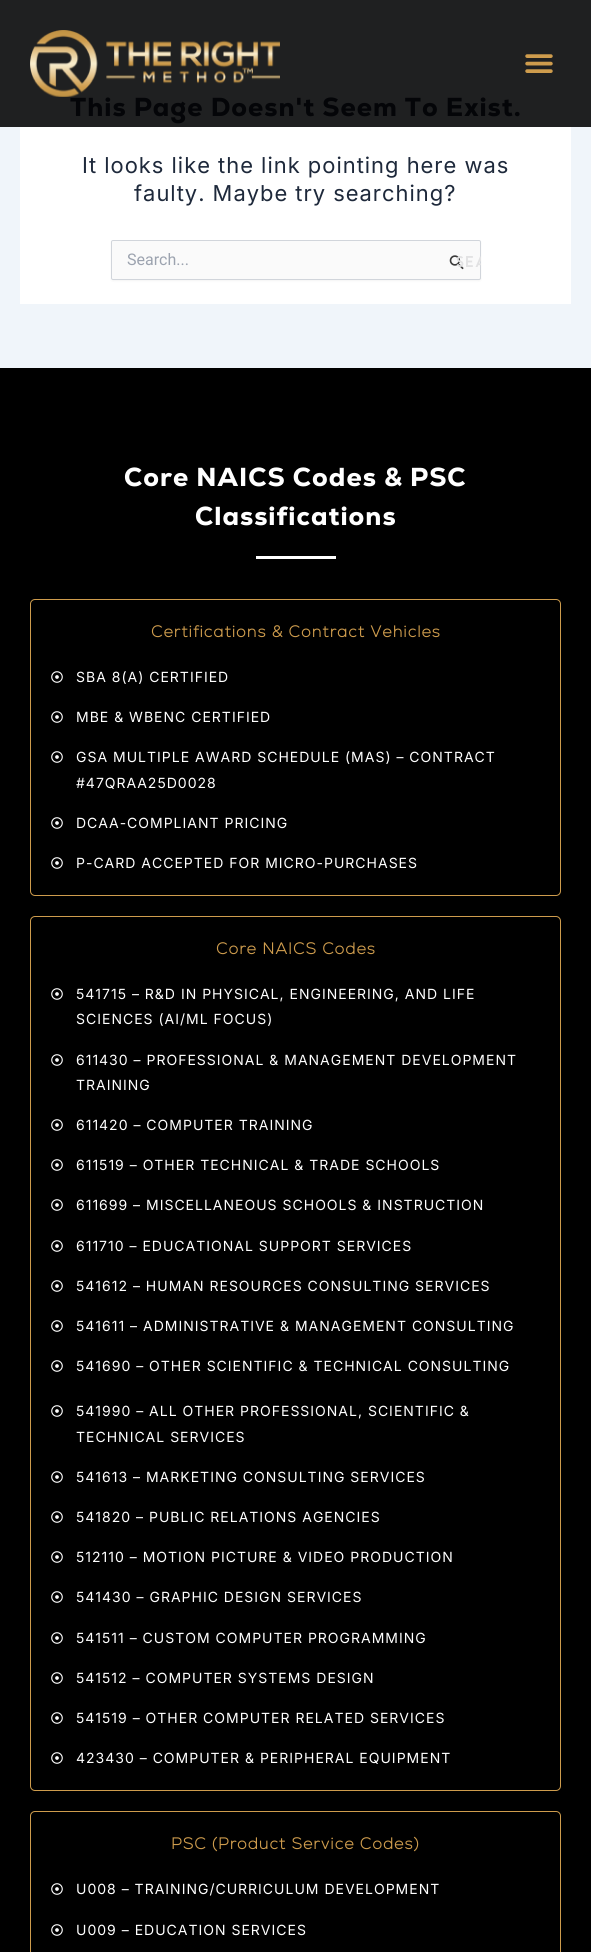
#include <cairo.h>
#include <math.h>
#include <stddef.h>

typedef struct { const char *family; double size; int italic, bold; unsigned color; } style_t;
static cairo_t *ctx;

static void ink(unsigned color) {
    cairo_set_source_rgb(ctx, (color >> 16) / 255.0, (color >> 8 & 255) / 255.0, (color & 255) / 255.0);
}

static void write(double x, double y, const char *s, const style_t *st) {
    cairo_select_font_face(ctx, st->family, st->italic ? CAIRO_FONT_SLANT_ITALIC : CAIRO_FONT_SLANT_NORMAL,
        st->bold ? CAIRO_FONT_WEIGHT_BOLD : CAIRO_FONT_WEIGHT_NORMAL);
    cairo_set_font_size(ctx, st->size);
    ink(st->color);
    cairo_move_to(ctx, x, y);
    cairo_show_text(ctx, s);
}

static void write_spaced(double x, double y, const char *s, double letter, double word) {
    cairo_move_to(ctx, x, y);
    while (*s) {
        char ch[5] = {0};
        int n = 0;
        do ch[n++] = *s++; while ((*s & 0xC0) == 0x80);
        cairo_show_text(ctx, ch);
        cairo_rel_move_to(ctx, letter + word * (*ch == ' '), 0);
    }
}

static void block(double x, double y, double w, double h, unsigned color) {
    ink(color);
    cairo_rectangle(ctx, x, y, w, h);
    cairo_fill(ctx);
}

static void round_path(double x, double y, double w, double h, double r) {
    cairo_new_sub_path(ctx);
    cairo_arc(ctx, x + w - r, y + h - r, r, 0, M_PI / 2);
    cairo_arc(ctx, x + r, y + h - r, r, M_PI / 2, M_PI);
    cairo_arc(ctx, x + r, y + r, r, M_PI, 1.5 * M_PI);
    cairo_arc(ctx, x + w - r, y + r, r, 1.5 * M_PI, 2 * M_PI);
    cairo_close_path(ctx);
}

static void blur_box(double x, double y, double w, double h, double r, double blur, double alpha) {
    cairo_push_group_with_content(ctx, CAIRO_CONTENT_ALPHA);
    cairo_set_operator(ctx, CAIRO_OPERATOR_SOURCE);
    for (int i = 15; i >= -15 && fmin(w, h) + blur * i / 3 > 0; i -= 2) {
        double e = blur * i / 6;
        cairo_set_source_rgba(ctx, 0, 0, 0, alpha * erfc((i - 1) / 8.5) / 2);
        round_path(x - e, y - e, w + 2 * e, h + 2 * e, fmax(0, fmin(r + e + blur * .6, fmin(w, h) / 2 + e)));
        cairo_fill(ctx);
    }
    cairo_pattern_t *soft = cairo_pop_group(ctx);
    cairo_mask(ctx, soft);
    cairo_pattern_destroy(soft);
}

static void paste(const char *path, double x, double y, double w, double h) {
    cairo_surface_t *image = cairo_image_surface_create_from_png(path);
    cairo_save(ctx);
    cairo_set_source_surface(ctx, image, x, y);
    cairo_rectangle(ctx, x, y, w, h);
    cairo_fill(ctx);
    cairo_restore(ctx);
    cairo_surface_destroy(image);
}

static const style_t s1 = {"Roboto", 16, 0, 0, 0x9ca3af};

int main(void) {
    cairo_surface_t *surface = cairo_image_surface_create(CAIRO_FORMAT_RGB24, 591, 1952);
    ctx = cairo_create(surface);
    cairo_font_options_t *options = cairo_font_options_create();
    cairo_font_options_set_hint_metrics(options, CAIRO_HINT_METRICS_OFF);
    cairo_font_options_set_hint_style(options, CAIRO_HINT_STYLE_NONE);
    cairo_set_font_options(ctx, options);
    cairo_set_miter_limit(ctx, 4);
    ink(0xf0f5fa);
    cairo_paint(ctx);
    block(0, 0, 591, 127, 0x1f2021);
    paste("pic1.png", 30, 30, 250, 67);
    paste("pic2.png", 525, 54, 28, 19);
    block(20, 127, 551, 177, 0xffffff);
    cairo_select_font_face(ctx, "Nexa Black", CAIRO_FONT_SLANT_NORMAL, CAIRO_FONT_WEIGHT_NORMAL);
    cairo_set_font_size(ctx, 26);
    ink(0x040508);
    write_spaced(70, 116, "This Page Doesn't Seem To Exist.", 1, 0);
    cairo_select_font_face(ctx, "Inter", CAIRO_FONT_SLANT_NORMAL, CAIRO_FONT_WEIGHT_NORMAL);
    cairo_set_font_size(ctx, 21.9);
    ink(0x1e293b);
    write_spaced(82, 173, "It looks like the link pointing here was", 1, 0);
    write_spaced(134, 201, "faulty. Maybe try searching?", 1, 0);
    ink(0x000000);
    blur_box(111, 241, 370, 40, 2, 1, 0.05);
    ink(0xfafafa);
    round_path(111.5, 240.5, 369, 39, 1.5);
    cairo_fill_preserve(ctx);
    ink(0xd1d5db);
    cairo_set_line_width(ctx, 1);
    cairo_stroke(ctx);
    write(127, 265, "Search...", &s1);
    paste("pic3.png", 449, 255, 15, 15);
    cairo_save(ctx);
    round_path(436, 240, 45, 42, 2);
    cairo_clip(ctx);
    cairo_select_font_face(ctx, "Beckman", CAIRO_FONT_SLANT_NORMAL, CAIRO_FONT_WEIGHT_NORMAL);
    ink(0xe2e2e3);
    write_spaced(456, 267, "Sea", 1, 0);
    cairo_restore(ctx);
    block(0, 368, 591, 1584, 0x000000);
    cairo_select_font_face(ctx, "Nexa Black", CAIRO_FONT_SLANT_NORMAL, CAIRO_FONT_WEIGHT_NORMAL);
    cairo_set_font_size(ctx, 26);
    ink(0xffffff);
    write_spaced(124, 486, "Core NAICS Codes & PSC", 1, 0);
    write_spaced(195, 525, "Classifications", 1, 0);
    block(256, 556, 80, 3, 0xffffff);
    round_path(30.5, 599.5, 530, 296, 4.5);
    ink(0xce9c4d);
    cairo_stroke(ctx);
    cairo_select_font_face(ctx, "Nexa", CAIRO_FONT_SLANT_NORMAL, CAIRO_FONT_WEIGHT_BOLD);
    cairo_set_font_size(ctx, 16);
    write_spaced(151, 637, "Certifications & Contract Vehicles", 1, 0);
    paste("pic4.png", 51, 671, 12, 12);
    cairo_select_font_face(ctx, "Inter", CAIRO_FONT_SLANT_NORMAL, CAIRO_FONT_WEIGHT_NORMAL);
    cairo_set_font_size(ctx, 14);
    ink(0xffffff);
    write_spaced(76, 682, "SBA 8(A) CERTIFIED", 1, 0);
    paste("pic4.png", 51, 711, 12, 12);
    write_spaced(76, 722, "MBE & WBENC CERTIFIED", 1, 0);
    paste("pic4.png", 51, 751, 12, 12);
    write_spaced(76, 762, "GSA MULTIPLE AWARD SCHEDULE (MAS) – CONTRACT", 1, 0);
    write_spaced(76, 788, "#47QRAA25D0028", 1, 0);
    paste("pic4.png", 51, 817, 12, 12);
    write_spaced(76, 828, "DCAA-COMPLIANT PRICING", 1, 0);
    paste("pic4.png", 51, 857, 12, 12);
    write_spaced(76, 868, "P-CARD ACCEPTED FOR MICRO-PURCHASES", 1, 0);
    round_path(30.5, 916.5, 530, 874, 4.5);
    ink(0xce9c4d);
    cairo_stroke(ctx);
    cairo_select_font_face(ctx, "Nexa", CAIRO_FONT_SLANT_NORMAL, CAIRO_FONT_WEIGHT_BOLD);
    cairo_set_font_size(ctx, 16);
    write_spaced(216, 954, "Core NAICS Codes", 1, 0);
    paste("pic4.png", 51, 988, 12, 12);
    cairo_select_font_face(ctx, "Inter", CAIRO_FONT_SLANT_NORMAL, CAIRO_FONT_WEIGHT_NORMAL);
    cairo_set_font_size(ctx, 14);
    ink(0xffffff);
    write_spaced(76, 999, "541715 – R&D IN PHYSICAL, ENGINEERING, AND LIFE", 1, 0);
    write_spaced(76, 1024, "SCIENCES (AI/ML FOCUS)", 1, 0);
    paste("pic4.png", 51, 1054, 12, 12);
    write_spaced(76, 1065, "611430 – PROFESSIONAL & MANAGEMENT DEVELOPMENT", 1, 0);
    write_spaced(76, 1090, "TRAINING", 1, 0);
    paste("pic4.png", 51, 1119, 12, 12);
    write_spaced(76, 1130, "611420 – COMPUTER TRAINING", 1, 0);
    paste("pic4.png", 51, 1159, 12, 12);
    write_spaced(76, 1170, "611519 – OTHER TECHNICAL & TRADE SCHOOLS", 1, 0);
    paste("pic4.png", 51, 1199, 12, 12);
    write_spaced(76, 1210, "611699 – MISCELLANEOUS SCHOOLS & INSTRUCTION", 1, 0);
    paste("pic4.png", 51, 1240, 12, 12);
    write_spaced(76, 1251, "611710 – EDUCATIONAL SUPPORT SERVICES", 1, 0);
    paste("pic4.png", 51, 1280, 12, 12);
    write_spaced(76, 1291, "541612 – HUMAN RESOURCES CONSULTING SERVICES", 1, 0);
    paste("pic4.png", 51, 1320, 12, 12);
    write_spaced(76, 1331, "541611 – ADMINISTRATIVE & MANAGEMENT CONSULTING", 1, 0);
    paste("pic4.png", 51, 1360, 12, 12);
    write_spaced(76, 1371, "541690 – OTHER SCIENTIFIC & TECHNICAL CONSULTING", 1, 0);
    paste("pic4.png", 51, 1405, 12, 12);
    write_spaced(76, 1416, "541990 – ALL OTHER PROFESSIONAL, SCIENTIFIC &", 1, 0);
    write_spaced(76, 1442, "TECHNICAL SERVICES", 1, 0);
    paste("pic4.png", 51, 1471, 12, 12);
    write_spaced(76, 1482, "541613 – MARKETING CONSULTING SERVICES", 1, 0);
    paste("pic4.png", 51, 1511, 12, 12);
    write_spaced(76, 1522, "541820 – PUBLIC RELATIONS AGENCIES", 1, 0);
    paste("pic4.png", 51, 1551, 12, 12);
    write_spaced(76, 1562, "512110 – MOTION PICTURE & VIDEO PRODUCTION", 1, 0);
    paste("pic4.png", 51, 1591, 12, 12);
    write_spaced(76, 1602, "541430 – GRAPHIC DESIGN SERVICES", 1, 0);
    paste("pic4.png", 51, 1632, 12, 12);
    write_spaced(76, 1643, "541511 – CUSTOM COMPUTER PROGRAMMING", 1, 0);
    paste("pic4.png", 51, 1672, 12, 12);
    write_spaced(76, 1683, "541512 – COMPUTER SYSTEMS DESIGN", 1, 0);
    paste("pic4.png", 51, 1712, 12, 12);
    write_spaced(76, 1723, "541519 – OTHER COMPUTER RELATED SERVICES", 1, 0);
    paste("pic4.png", 51, 1752, 12, 12);
    write_spaced(76, 1763, "423430 – COMPUTER & PERIPHERAL EQUIPMENT", 1, 0);
    round_path(30.5, 1811.5, 530, 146, 4.5);
    ink(0xce9c4d);
    cairo_stroke(ctx);
    cairo_select_font_face(ctx, "Nexa", CAIRO_FONT_SLANT_NORMAL, CAIRO_FONT_WEIGHT_BOLD);
    cairo_set_font_size(ctx, 16);
    write_spaced(171, 1849, "PSC (Product Service Codes)", 1, 0);
    paste("pic4.png", 51, 1883, 12, 12);
    cairo_select_font_face(ctx, "Inter", CAIRO_FONT_SLANT_NORMAL, CAIRO_FONT_WEIGHT_NORMAL);
    cairo_set_font_size(ctx, 14);
    ink(0xffffff);
    write_spaced(76, 1894, "U008 – TRAINING/CURRICULUM DEVELOPMENT", 1, 0);
    paste("pic4.png", 51, 1924, 12, 12);
    write_spaced(76, 1935, "U009 – EDUCATION SERVICES", 1, 0);
    cairo_surface_write_to_png(surface, "screenshot.png");
    cairo_font_options_destroy(options);
    cairo_destroy(ctx);
    cairo_surface_destroy(surface);
    return 0;
}
